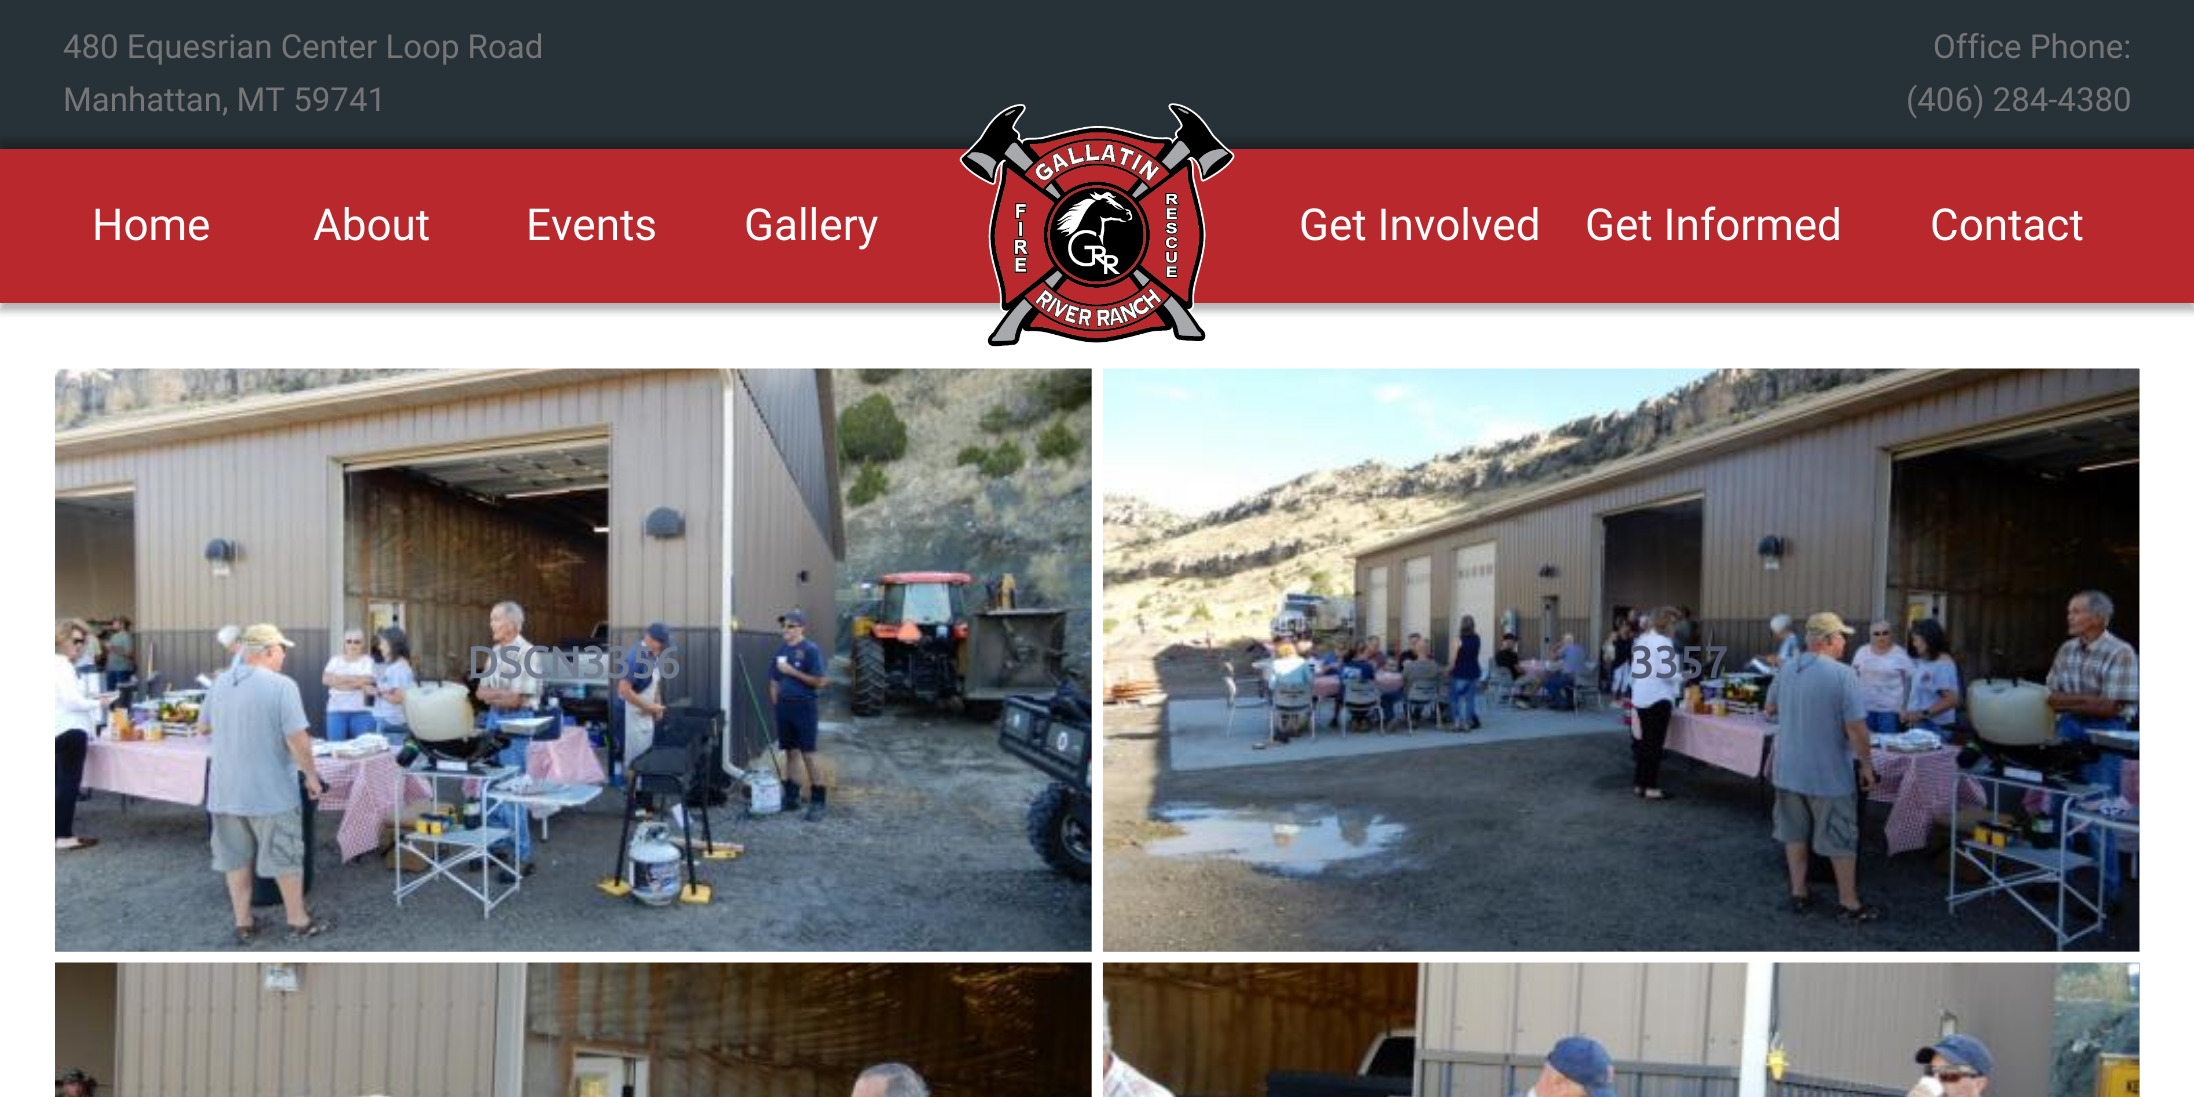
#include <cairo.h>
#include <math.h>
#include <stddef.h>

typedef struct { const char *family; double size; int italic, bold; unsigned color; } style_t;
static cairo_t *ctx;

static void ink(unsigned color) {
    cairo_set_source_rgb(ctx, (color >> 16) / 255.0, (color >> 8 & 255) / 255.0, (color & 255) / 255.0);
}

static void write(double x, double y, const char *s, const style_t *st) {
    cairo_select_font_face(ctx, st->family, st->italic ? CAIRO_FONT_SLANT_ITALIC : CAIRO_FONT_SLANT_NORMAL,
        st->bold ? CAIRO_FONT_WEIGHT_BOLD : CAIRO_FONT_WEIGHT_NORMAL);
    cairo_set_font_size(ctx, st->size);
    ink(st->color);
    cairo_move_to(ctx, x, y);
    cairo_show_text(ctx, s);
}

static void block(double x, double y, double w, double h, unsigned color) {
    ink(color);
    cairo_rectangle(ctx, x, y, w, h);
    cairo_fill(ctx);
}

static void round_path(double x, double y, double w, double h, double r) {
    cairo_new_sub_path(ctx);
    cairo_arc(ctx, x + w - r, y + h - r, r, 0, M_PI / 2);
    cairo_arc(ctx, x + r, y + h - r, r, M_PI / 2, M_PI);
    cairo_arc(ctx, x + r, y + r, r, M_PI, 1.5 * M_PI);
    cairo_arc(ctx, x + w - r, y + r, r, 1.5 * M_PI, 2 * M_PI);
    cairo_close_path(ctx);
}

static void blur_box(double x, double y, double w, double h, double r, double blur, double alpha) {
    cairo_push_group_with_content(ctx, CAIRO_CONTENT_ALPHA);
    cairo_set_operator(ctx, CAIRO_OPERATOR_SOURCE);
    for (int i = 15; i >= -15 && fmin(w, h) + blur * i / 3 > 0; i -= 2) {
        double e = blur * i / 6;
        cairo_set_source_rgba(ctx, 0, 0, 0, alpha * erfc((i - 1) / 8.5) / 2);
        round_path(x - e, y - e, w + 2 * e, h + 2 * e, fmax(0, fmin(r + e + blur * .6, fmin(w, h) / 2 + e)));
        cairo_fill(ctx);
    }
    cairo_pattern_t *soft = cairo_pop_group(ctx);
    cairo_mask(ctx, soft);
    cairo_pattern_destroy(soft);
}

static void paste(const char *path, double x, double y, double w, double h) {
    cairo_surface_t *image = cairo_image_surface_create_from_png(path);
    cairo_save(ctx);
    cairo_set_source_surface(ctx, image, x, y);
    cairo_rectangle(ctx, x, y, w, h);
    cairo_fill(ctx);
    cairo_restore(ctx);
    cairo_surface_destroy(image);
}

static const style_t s1 = {"Roboto", 33, 0, 0, 0x757575};
static const style_t s2 = {"Roboto", 44, 0, 0, 0xffffff};
static const style_t s3 = {"Ubuntu", 44, 0, 1, 0x727c8e};
static const style_t s4 = {"Ubuntu", 44, 0, 1, 0x535a70};

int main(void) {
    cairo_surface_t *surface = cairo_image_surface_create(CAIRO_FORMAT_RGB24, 2194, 1097);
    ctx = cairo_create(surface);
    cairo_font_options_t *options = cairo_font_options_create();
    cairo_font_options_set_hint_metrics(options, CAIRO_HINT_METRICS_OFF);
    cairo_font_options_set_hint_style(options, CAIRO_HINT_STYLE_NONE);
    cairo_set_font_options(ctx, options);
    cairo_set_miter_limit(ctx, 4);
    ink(0xffffff);
    cairo_paint(ctx);
    block(0, 0, 2194, 149, 0x263238);
    write(63, 58, "480 Equesrian Center Loop Road", &s1);
    write(63, 111, "Manhattan, MT 59741", &s1);
    write(1933, 58, "Office Phone:", &s1);
    write(1906, 111, "(406) 284-4380", &s1);
    ink(0x000000);
    blur_box(0, 140, 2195, 154, 0, 4, 0.3);
    blur_box(0, 157, 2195, 154, 0, 4, 0.3);
    block(0, 149, 2194, 154, 0xb9282c);
    paste("pic1.png", 959, 103, 276, 244);
    write(92, 240, "Home", &s2);
    write(313, 240, "About", &s2);
    write(526, 240, "Events", &s2);
    write(744, 240, "Gallery", &s2);
    write(1299, 240, "Get Involved", &s2);
    write(1585, 240, "Get Informed", &s2);
    write(1930, 240, "Contact", &s2);
    block(55, 369, 1037, 583, 0xb3b3b3);
    paste("pic2.png", 55, 368, 1037, 584);
    write(467, 678, "DSCN3356", &s3);
    block(1103, 369, 1037, 583, 0xb3b3b3);
    paste("pic3.png", 1102, 368, 1038, 584);
    write(1629, 678, "3357", &s4);
    block(1091, 963, 1, 134, 0xb3b3b3);
    paste("pic4.png", 55, 962, 1037, 135);
    block(2139, 963, 1, 134, 0xb3b3b3);
    paste("pic5.png", 1102, 962, 1038, 135);
    cairo_surface_write_to_png(surface, "screenshot.png");
    cairo_font_options_destroy(options);
    cairo_destroy(ctx);
    cairo_surface_destroy(surface);
    return 0;
}
